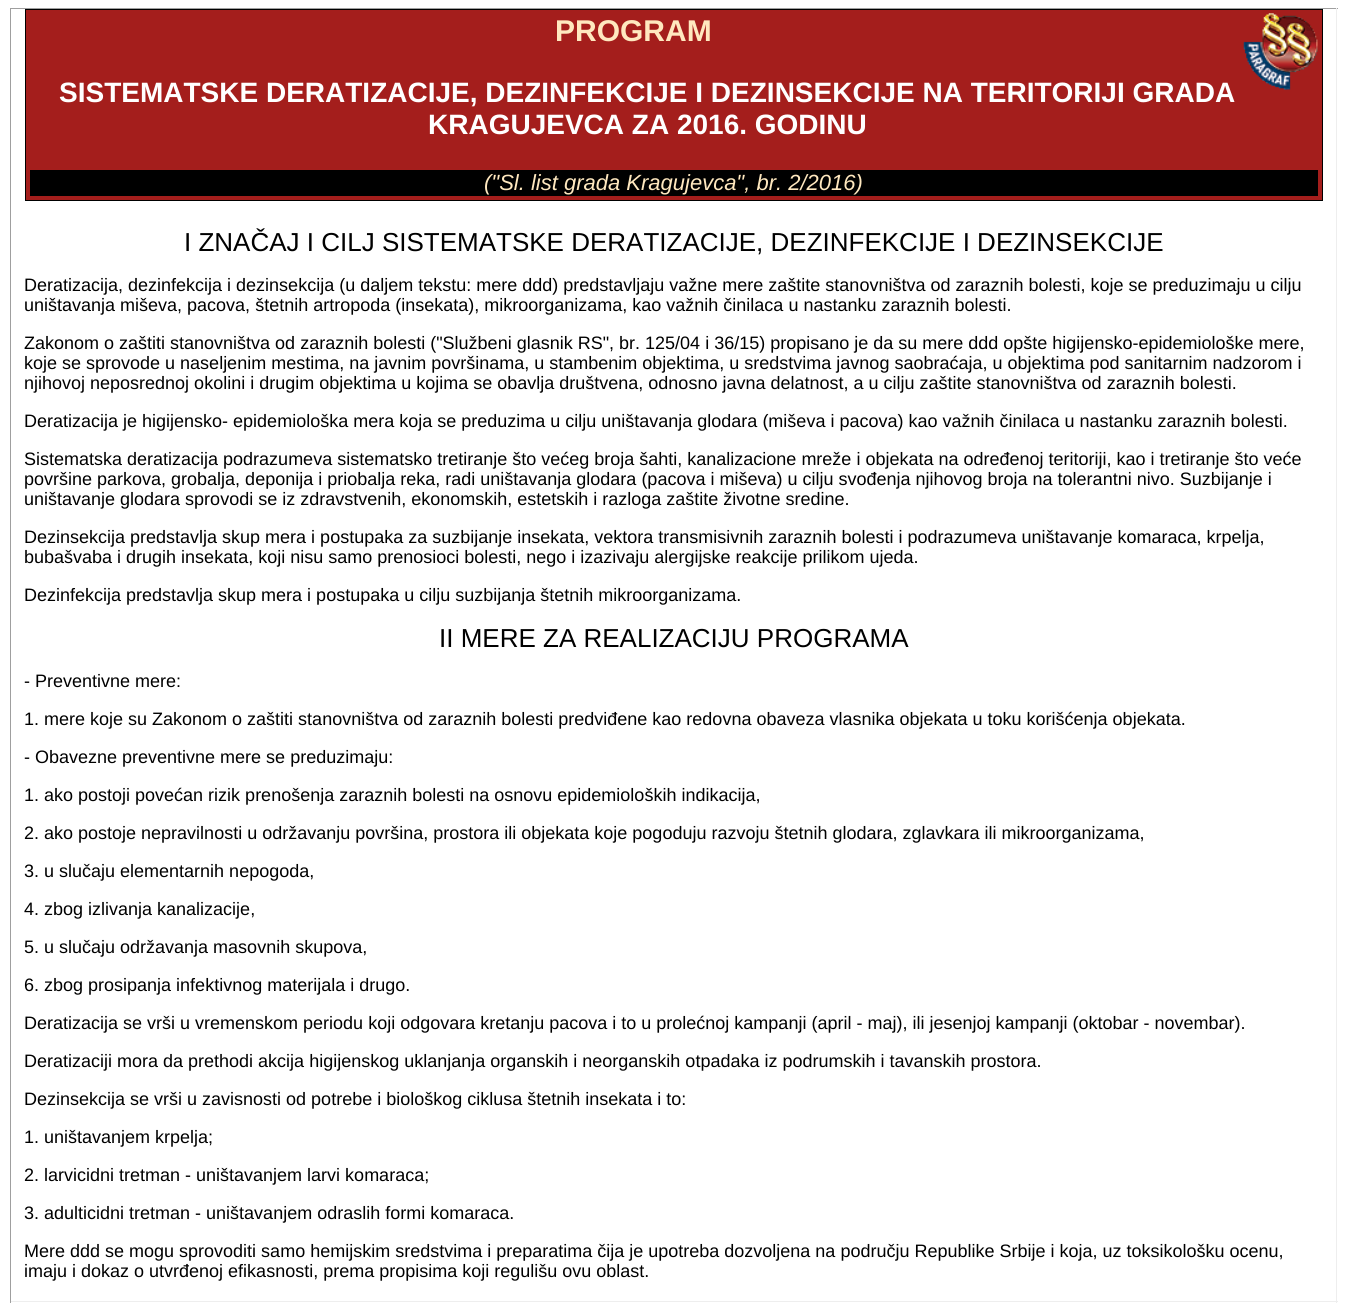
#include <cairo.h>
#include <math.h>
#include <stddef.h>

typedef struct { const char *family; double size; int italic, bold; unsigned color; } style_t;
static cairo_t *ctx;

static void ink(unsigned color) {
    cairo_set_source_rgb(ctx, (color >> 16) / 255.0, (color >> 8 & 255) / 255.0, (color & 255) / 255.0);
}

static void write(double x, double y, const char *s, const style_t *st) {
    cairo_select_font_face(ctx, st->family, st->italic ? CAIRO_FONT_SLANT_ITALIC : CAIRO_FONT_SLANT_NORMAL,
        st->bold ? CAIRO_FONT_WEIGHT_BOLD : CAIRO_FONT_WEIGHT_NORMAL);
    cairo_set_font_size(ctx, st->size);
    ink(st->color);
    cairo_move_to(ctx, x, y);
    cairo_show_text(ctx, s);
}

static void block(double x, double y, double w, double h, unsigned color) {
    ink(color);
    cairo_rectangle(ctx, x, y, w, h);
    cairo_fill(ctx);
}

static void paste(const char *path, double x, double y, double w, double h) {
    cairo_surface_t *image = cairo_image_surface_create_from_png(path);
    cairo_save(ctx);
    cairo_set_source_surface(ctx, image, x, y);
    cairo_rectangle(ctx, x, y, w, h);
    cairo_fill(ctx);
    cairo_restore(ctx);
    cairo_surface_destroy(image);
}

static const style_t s1 = {"Liberation Sans", 30, 0, 1, 0xffe8bf};
static const style_t s2 = {"Liberation Sans", 28, 0, 1, 0xffffff};
static const style_t s3 = {"Liberation Sans", 22, 1, 0, 0xffe8bf};
static const style_t s4 = {"Liberation Sans", 26, 0, 0, 0x000000};
static const style_t s5 = {"Liberation Sans", 18, 0, 0, 0x000000};

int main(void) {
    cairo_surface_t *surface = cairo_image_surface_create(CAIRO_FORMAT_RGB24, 1345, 1312);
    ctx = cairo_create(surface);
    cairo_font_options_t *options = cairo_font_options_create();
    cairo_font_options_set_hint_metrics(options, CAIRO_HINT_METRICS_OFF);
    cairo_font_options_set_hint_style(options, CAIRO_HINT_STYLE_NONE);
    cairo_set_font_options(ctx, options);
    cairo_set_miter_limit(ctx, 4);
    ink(0xffffff);
    cairo_paint(ctx);
    block(10, 8, 1328, 1, 0x9f9f9f);
    block(1336, 8, 1, 1295, 0xeeeeee);
    block(10, 1301, 1328, 1, 0xeeeeee);
    block(10, 8, 1, 1295, 0x9f9f9f);
    block(26, 10, 1296, 190, 0xa41e1c);
    paste("pic1.png", 1243, 13, 75, 77);
    cairo_rectangle(ctx, 25.5, 9.5, 1297, 191);
    ink(0x000000);
    cairo_set_line_width(ctx, 1);
    cairo_stroke(ctx);
    write(555, 41, "PROGRAM", &s1);
    write(59, 102, "SISTEMATSKE DERATIZACIJE, DEZINFEKCIJE I DEZINSEKCIJE NA TERITORIJI GRADA", &s2);
    write(428, 134, "KRAGUJEVCA ZA 2016. GODINU", &s2);
    block(30, 170, 1288, 26, 0x000000);
    write(484, 190, "(\"Sl. list grada Kragujevca\", br. 2/2016)", &s3);
    write(184, 251, "I ZNAČAJ I CILJ SISTEMATSKE DERATIZACIJE, DEZINFEKCIJE I DEZINSEKCIJE", &s4);
    write(24, 291, "Deratizacija, dezinfekcija i dezinsekcija (u daljem tekstu: mere ddd) predstavljaju važne mere zaštite stanovništva od zaraznih bolesti, koje se preduzimaju u cilju", &s5);
    write(24, 311, "uništavanja miševa, pacova, štetnih artropoda (insekata), mikroorganizama, kao važnih činilaca u nastanku zaraznih bolesti.", &s5);
    write(24, 349, "Zakonom o zaštiti stanovništva od zaraznih bolesti (\"Službeni glasnik RS\", br. 125/04 i 36/15) propisano je da su mere ddd opšte higijensko-epidemiološke mere,", &s5);
    write(24, 369, "koje se sprovode u naseljenim mestima, na javnim površinama, u stambenim objektima, u sredstvima javnog saobraćaja, u objektima pod sanitarnim nadzorom i", &s5);
    write(24, 389, "njihovoj neposrednoj okolini i drugim objektima u kojima se obavlja društvena, odnosno javna delatnost, a u cilju zaštite stanovništva od zaraznih bolesti.", &s5);
    write(24, 427, "Deratizacija je higijensko- epidemiološka mera koja se preduzima u cilju uništavanja glodara (miševa i pacova) kao važnih činilaca u nastanku zaraznih bolesti.", &s5);
    write(24, 465, "Sistematska deratizacija podrazumeva sistematsko tretiranje što većeg broja šahti, kanalizacione mreže i objekata na određenoj teritoriji, kao i tretiranje što veće", &s5);
    write(24, 485, "površine parkova, grobalja, deponija i priobalja reka, radi uništavanja glodara (pacova i miševa) u cilju svođenja njihovog broja na tolerantni nivo. Suzbijanje i", &s5);
    write(24, 505, "uništavanje glodara sprovodi se iz zdravstvenih, ekonomskih, estetskih i razloga zaštite životne sredine.", &s5);
    write(24, 543, "Dezinsekcija predstavlja skup mera i postupaka za suzbijanje insekata, vektora transmisivnih zaraznih bolesti i podrazumeva uništavanje komaraca, krpelja,", &s5);
    write(24, 563, "bubašvaba i drugih insekata, koji nisu samo prenosioci bolesti, nego i izazivaju alergijske reakcije prilikom ujeda.", &s5);
    write(24, 601, "Dezinfekcija predstavlja skup mera i postupaka u cilju suzbijanja štetnih mikroorganizama.", &s5);
    write(439, 647, "II MERE ZA REALIZACIJU PROGRAMA", &s4);
    write(24, 687, "- Preventivne mere:", &s5);
    write(24, 725, "1. mere koje su Zakonom o zaštiti stanovništva od zaraznih bolesti predviđene kao redovna obaveza vlasnika objekata u toku korišćenja objekata.", &s5);
    write(24, 763, "- Obavezne preventivne mere se preduzimaju:", &s5);
    write(24, 801, "1. ako postoji povećan rizik prenošenja zaraznih bolesti na osnovu epidemioloških indikacija,", &s5);
    write(24, 839, "2. ako postoje nepravilnosti u održavanju površina, prostora ili objekata koje pogoduju razvoju štetnih glodara, zglavkara ili mikroorganizama,", &s5);
    write(24, 877, "3. u slučaju elementarnih nepogoda,", &s5);
    write(24, 915, "4. zbog izlivanja kanalizacije,", &s5);
    write(24, 953, "5. u slučaju održavanja masovnih skupova,", &s5);
    write(24, 991, "6. zbog prosipanja infektivnog materijala i drugo.", &s5);
    write(24, 1029, "Deratizacija se vrši u vremenskom periodu koji odgovara kretanju pacova i to u prolećnoj kampanji (april - maj), ili jesenjoj kampanji (oktobar - novembar).", &s5);
    write(24, 1067, "Deratizaciji mora da prethodi akcija higijenskog uklanjanja organskih i neorganskih otpadaka iz podrumskih i tavanskih prostora.", &s5);
    write(24, 1105, "Dezinsekcija se vrši u zavisnosti od potrebe i biološkog ciklusa štetnih insekata i to:", &s5);
    write(24, 1143, "1. uništavanjem krpelja;", &s5);
    write(24, 1181, "2. larvicidni tretman - uništavanjem larvi komaraca;", &s5);
    write(24, 1219, "3. adulticidni tretman - uništavanjem odraslih formi komaraca.", &s5);
    write(24, 1257, "Mere ddd se mogu sprovoditi samo hemijskim sredstvima i preparatima čija je upotreba dozvoljena na području Republike Srbije i koja, uz toksikološku ocenu,", &s5);
    write(24, 1277, "imaju i dokaz o utvrđenoj efikasnosti, prema propisima koji regulišu ovu oblast.", &s5);
    cairo_surface_write_to_png(surface, "screenshot.png");
    cairo_font_options_destroy(options);
    cairo_destroy(ctx);
    cairo_surface_destroy(surface);
    return 0;
}
